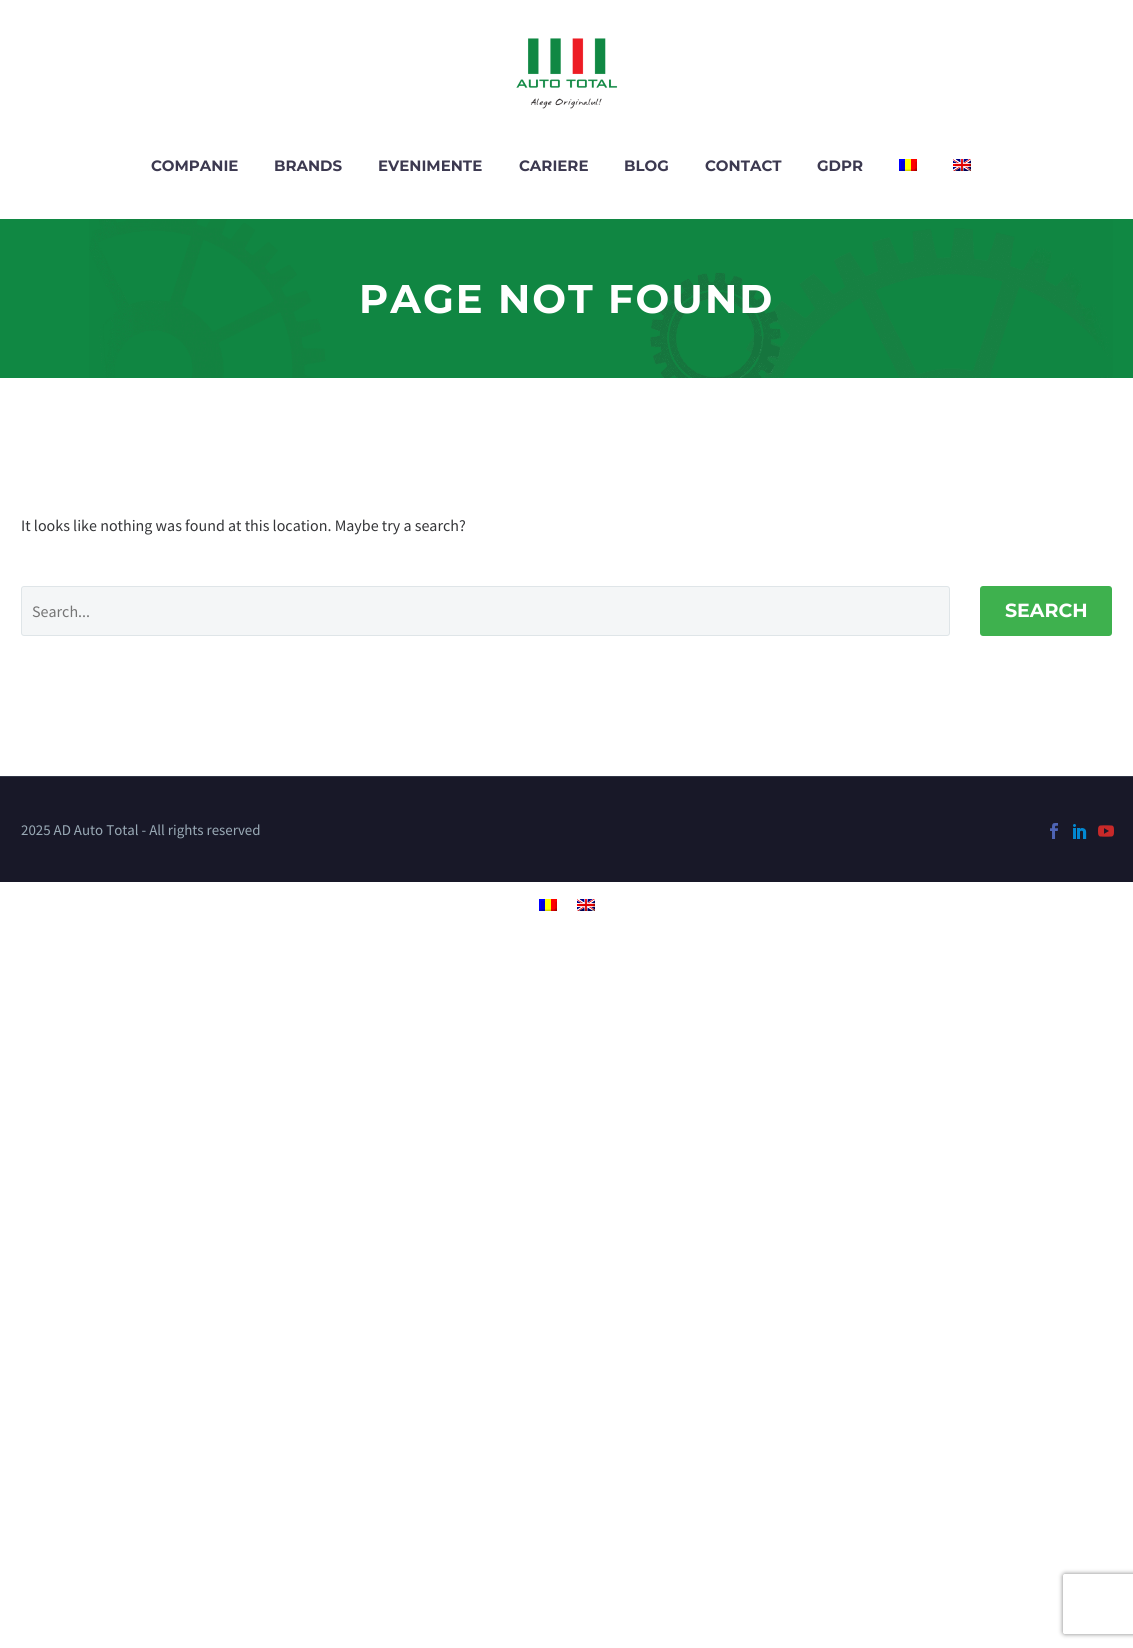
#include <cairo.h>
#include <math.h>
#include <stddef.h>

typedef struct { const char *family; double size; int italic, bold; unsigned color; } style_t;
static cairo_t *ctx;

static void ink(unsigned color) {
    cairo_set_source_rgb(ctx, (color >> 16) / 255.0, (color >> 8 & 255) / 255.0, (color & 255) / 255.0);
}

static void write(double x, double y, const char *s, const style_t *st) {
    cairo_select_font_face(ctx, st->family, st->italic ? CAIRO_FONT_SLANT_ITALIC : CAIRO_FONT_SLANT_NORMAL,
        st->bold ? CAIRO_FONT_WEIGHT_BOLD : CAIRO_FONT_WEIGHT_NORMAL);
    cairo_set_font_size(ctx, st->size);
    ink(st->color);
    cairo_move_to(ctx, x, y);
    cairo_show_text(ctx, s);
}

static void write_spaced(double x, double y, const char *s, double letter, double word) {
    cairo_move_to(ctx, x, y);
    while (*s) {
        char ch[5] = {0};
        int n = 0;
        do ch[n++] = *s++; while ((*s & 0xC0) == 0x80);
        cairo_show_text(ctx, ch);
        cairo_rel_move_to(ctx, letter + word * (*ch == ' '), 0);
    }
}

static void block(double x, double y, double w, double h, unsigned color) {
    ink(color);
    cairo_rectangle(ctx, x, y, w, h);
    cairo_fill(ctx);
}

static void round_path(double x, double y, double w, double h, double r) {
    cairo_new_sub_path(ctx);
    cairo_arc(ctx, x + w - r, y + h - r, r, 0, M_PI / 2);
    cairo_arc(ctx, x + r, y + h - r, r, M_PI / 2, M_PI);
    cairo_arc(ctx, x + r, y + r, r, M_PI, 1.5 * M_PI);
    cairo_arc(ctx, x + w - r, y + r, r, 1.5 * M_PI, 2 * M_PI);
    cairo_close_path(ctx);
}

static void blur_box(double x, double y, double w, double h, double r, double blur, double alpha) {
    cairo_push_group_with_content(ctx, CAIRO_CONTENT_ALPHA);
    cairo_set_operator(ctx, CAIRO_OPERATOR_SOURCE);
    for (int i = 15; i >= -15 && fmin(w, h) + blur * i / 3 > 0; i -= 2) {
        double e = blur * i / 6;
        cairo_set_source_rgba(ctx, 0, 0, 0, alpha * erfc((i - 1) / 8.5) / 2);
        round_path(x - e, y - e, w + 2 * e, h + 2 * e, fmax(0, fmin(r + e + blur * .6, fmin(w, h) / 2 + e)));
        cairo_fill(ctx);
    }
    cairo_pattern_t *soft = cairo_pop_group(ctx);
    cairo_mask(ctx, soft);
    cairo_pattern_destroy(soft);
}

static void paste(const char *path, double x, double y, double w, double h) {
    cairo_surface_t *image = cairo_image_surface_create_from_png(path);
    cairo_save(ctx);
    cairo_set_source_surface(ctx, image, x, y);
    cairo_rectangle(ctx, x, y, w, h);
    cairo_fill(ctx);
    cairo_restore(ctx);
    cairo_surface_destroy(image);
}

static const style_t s1 = {"Montserrat", 15, 0, 1, 0x3c3950};
static const style_t s2 = {"Source Sans Pro", 16, 0, 0, 0x343538};
static const style_t s3 = {"Source Sans Pro", 16, 0, 0, 0x757575};
static const style_t s4 = {"Montserrat", 19, 0, 1, 0xffffff};
static const style_t s5 = {"Source Sans Pro", 14.9, 0, 0, 0x99a9b5};

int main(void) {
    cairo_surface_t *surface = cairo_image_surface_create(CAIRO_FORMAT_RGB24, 1133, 1648);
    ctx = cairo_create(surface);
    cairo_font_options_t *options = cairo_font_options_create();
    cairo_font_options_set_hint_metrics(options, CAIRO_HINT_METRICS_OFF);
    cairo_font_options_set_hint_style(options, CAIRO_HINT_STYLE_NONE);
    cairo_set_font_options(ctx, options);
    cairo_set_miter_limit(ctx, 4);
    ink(0xffffff);
    cairo_paint(ctx);
    paste("pic1.png", 516, 38, 102, 71);
    write(151, 171, "COMPANIE", &s1);
    write(274, 171, "BRANDS", &s1);
    write(378, 171, "EVENIMENTE", &s1);
    write(519, 171, "CARIERE", &s1);
    write(624, 171, "BLOG", &s1);
    write(705, 171, "CONTACT", &s1);
    write(817, 171, "GDPR", &s1);
    paste("pic2.png", 899, 159, 18, 12);
    paste("pic3.png", 953, 159, 18, 12);
    block(0, 219, 1133, 159, 0x108843);
    paste("pic4.png", 89, 219, 1024, 159);
    cairo_set_font_size(ctx, 40);
    ink(0xffffff);
    write_spaced(359, 313, "PAGE NOT FOUND", 2, 0);
    write(21, 531, "It looks like nothing was found at this location. Maybe try a search?", &s2);
    ink(0xf4f6f7);
    round_path(21.5, 586.5, 928, 49, 2.5);
    cairo_fill_preserve(ctx);
    ink(0xdfe5e8);
    cairo_set_line_width(ctx, 1);
    cairo_stroke(ctx);
    write(32, 617, "Search...", &s3);
    ink(0x3eb14e);
    round_path(980, 586, 132, 50, 3);
    cairo_fill(ctx);
    write(1005, 617, "SEARCH", &s4);
    block(0, 777, 1133, 105, 0x181828);
    block(0, 776, 1133, 1, 0x313646);
    write(21, 835, "2025 AD Auto Total - All rights reserved", &s5);
    paste("pic5.png", 1050, 823, 8, 16);
    paste("pic6.png", 1073, 824, 14, 15);
    paste("pic7.png", 1098, 825, 16, 12);
    paste("pic2.png", 539, 899, 18, 12);
    paste("pic3.png", 577, 899, 18, 12);
    cairo_save(ctx);
    cairo_set_fill_rule(ctx, CAIRO_FILL_RULE_EVEN_ODD);
    cairo_new_path(ctx);
    cairo_move_to(ctx, 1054, 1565);
    cairo_line_to(ctx, 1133, 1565);
    cairo_line_to(ctx, 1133, 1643);
    cairo_line_to(ctx, 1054, 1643);
    cairo_close_path(ctx);
    cairo_move_to(ctx, 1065, 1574);
    cairo_line_to(ctx, 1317, 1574);
    cairo_curve_to(ctx, 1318, 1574, 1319, 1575, 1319, 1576);
    cairo_line_to(ctx, 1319, 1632);
    cairo_curve_to(ctx, 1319, 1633, 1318, 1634, 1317, 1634);
    cairo_line_to(ctx, 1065, 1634);
    cairo_curve_to(ctx, 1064, 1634, 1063, 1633, 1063, 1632);
    cairo_line_to(ctx, 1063, 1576);
    cairo_curve_to(ctx, 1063, 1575, 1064, 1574, 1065, 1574);
    cairo_close_path(ctx);
    cairo_clip(ctx);
    ink(0x808080);
    blur_box(1063, 1574, 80, 60, 2, 2.5, 1);
    cairo_restore(ctx);
    cairo_surface_write_to_png(surface, "screenshot.png");
    cairo_font_options_destroy(options);
    cairo_destroy(ctx);
    cairo_surface_destroy(surface);
    return 0;
}
